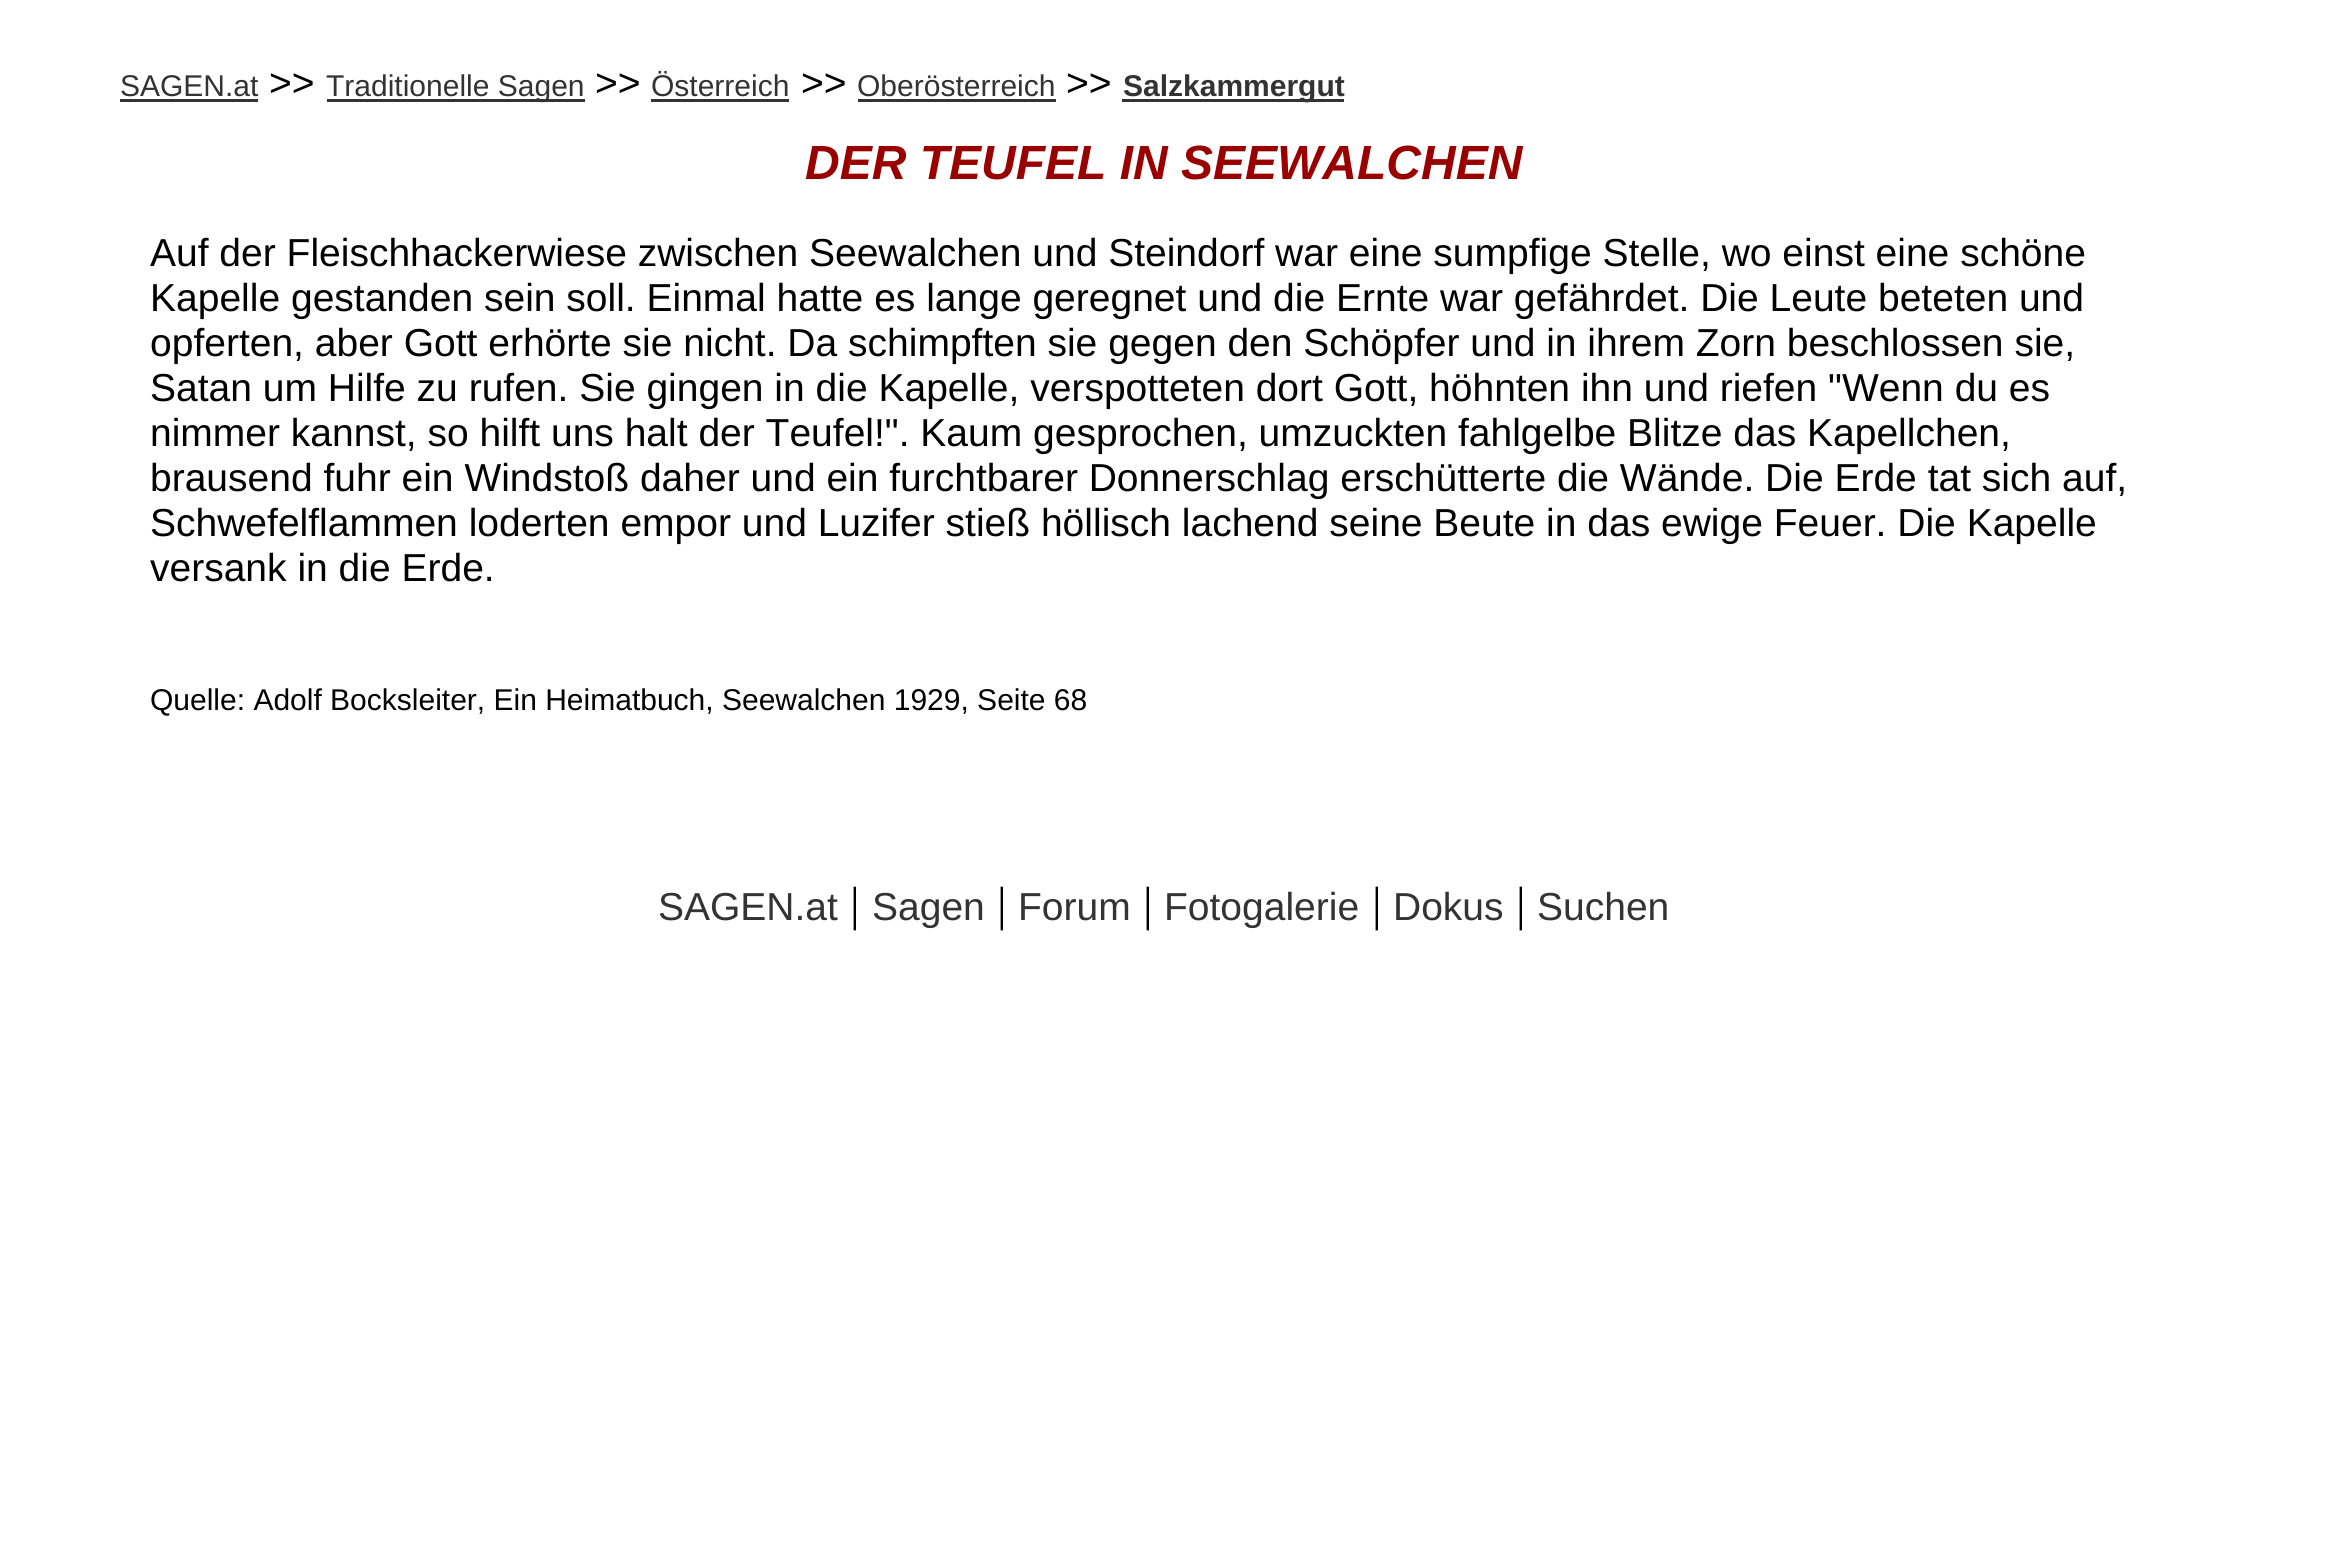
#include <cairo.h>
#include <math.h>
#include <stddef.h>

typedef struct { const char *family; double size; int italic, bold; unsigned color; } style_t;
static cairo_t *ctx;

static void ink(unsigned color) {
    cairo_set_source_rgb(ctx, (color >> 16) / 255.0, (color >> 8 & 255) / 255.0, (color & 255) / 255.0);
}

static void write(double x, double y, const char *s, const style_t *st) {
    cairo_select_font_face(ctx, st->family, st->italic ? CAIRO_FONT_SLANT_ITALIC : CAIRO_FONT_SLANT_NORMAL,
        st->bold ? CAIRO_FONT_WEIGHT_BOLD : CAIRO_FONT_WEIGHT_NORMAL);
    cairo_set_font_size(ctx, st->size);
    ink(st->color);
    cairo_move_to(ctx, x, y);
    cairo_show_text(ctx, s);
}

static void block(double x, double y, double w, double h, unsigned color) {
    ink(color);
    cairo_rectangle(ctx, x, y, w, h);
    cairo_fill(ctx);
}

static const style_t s1 = {"Liberation Sans", 30, 0, 0, 0x333333};
static const style_t s2 = {"Liberation Sans", 39, 0, 0, 0x000000};
static const style_t s3 = {"Liberation Sans", 30, 0, 1, 0x333333};
static const style_t s4 = {"Liberation Sans", 48, 1, 1, 0x990000};
static const style_t s5 = {"Liberation Sans", 30, 0, 0, 0x000000};
static const style_t s6 = {"Liberation Sans", 39, 0, 0, 0x333333};
static const style_t s7 = {"Liberation Serif", 48, 0, 0, 0x000000};

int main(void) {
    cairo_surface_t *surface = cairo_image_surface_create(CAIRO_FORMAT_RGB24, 2326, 1565);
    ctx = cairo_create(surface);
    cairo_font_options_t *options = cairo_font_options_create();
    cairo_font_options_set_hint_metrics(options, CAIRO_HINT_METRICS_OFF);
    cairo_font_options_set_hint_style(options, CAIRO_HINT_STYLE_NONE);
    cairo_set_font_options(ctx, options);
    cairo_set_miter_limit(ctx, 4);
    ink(0xffffff);
    cairo_paint(ctx);
    write(120, 96, "SAGEN.at", &s1);
    block(120, 99, 138, 3, 0x333333);
    write(269, 96, ">>", &s2);
    block(327, 99, 258, 3, 0x333333);
    write(326, 96, "Traditionelle Sagen", &s1);
    write(595, 96, ">>", &s2);
    write(651, 96, "Österreich", &s1);
    block(651, 99, 138, 3, 0x333333);
    write(801, 96, ">>", &s2);
    write(857, 96, "Oberösterreich", &s1);
    block(858, 99, 198, 3, 0x333333);
    write(1066, 96, ">>", &s2);
    block(1122, 99, 222, 3, 0x333333);
    write(1123, 96, "Salzkammergut", &s3);
    write(805, 179, "DER TEUFEL IN SEEWALCHEN", &s4);
    write(150, 266, "Auf der Fleischhackerwiese zwischen Seewalchen und Steindorf war eine sumpfige Stelle, wo einst eine schöne", &s2);
    write(150, 311, "Kapelle gestanden sein soll. Einmal hatte es lange geregnet und die Ernte war gefährdet. Die Leute beteten und", &s2);
    write(150, 356, "opferten, aber Gott erhörte sie nicht. Da schimpften sie gegen den Schöpfer und in ihrem Zorn beschlossen sie,", &s2);
    write(150, 401, "Satan um Hilfe zu rufen. Sie gingen in die Kapelle, verspotteten dort Gott, höhnten ihn und riefen \"Wenn du es", &s2);
    write(150, 446, "nimmer kannst, so hilft uns halt der Teufel!\". Kaum gesprochen, umzuckten fahlgelbe Blitze das Kapellchen,", &s2);
    write(150, 491, "brausend fuhr ein Windstoß daher und ein furchtbarer Donnerschlag erschütterte die Wände. Die Erde tat sich auf,", &s2);
    write(150, 536, "Schwefelflammen loderten empor und Luzifer stieß höllisch lachend seine Beute in das ewige Feuer. Die Kapelle", &s2);
    write(150, 581, "versank in die Erde.", &s2);
    write(150, 710, "Quelle: Adolf Bocksleiter, Ein Heimatbuch, Seewalchen 1929, Seite 68", &s5);
    write(658, 920, "SAGEN.at", &s6);
    write(850, 920, "|", &s7);
    write(872, 920, "Sagen", &s6);
    write(997, 920, "|", &s7);
    write(1018, 920, "Forum", &s6);
    write(1143, 920, "|", &s7);
    write(1164, 920, "Fotogalerie", &s6);
    write(1372, 920, "|", &s7);
    write(1393, 920, "Dokus", &s6);
    write(1516, 920, "|", &s7);
    write(1537, 920, "Suchen", &s6);
    cairo_surface_write_to_png(surface, "screenshot.png");
    cairo_font_options_destroy(options);
    cairo_destroy(ctx);
    cairo_surface_destroy(surface);
    return 0;
}
